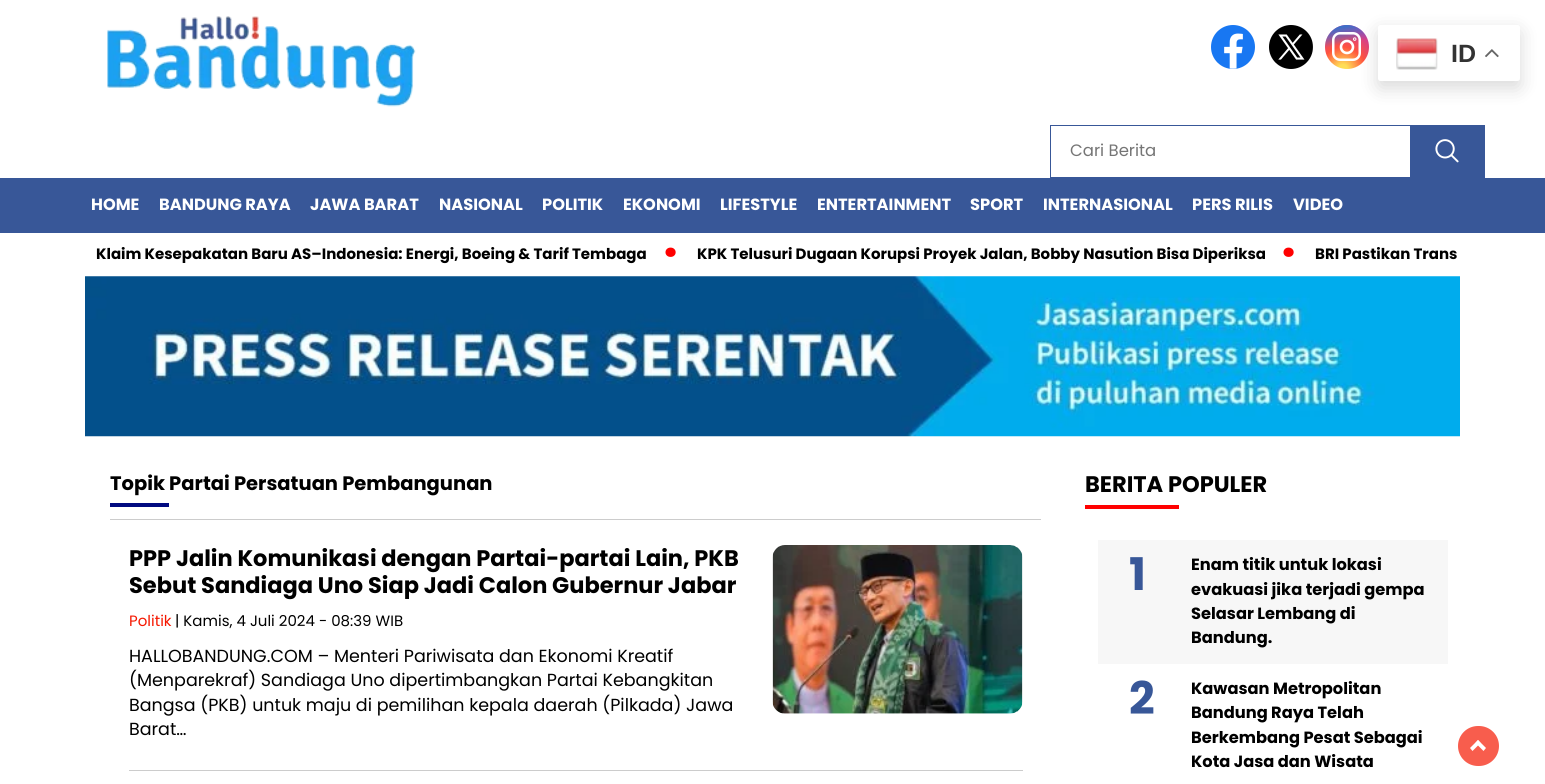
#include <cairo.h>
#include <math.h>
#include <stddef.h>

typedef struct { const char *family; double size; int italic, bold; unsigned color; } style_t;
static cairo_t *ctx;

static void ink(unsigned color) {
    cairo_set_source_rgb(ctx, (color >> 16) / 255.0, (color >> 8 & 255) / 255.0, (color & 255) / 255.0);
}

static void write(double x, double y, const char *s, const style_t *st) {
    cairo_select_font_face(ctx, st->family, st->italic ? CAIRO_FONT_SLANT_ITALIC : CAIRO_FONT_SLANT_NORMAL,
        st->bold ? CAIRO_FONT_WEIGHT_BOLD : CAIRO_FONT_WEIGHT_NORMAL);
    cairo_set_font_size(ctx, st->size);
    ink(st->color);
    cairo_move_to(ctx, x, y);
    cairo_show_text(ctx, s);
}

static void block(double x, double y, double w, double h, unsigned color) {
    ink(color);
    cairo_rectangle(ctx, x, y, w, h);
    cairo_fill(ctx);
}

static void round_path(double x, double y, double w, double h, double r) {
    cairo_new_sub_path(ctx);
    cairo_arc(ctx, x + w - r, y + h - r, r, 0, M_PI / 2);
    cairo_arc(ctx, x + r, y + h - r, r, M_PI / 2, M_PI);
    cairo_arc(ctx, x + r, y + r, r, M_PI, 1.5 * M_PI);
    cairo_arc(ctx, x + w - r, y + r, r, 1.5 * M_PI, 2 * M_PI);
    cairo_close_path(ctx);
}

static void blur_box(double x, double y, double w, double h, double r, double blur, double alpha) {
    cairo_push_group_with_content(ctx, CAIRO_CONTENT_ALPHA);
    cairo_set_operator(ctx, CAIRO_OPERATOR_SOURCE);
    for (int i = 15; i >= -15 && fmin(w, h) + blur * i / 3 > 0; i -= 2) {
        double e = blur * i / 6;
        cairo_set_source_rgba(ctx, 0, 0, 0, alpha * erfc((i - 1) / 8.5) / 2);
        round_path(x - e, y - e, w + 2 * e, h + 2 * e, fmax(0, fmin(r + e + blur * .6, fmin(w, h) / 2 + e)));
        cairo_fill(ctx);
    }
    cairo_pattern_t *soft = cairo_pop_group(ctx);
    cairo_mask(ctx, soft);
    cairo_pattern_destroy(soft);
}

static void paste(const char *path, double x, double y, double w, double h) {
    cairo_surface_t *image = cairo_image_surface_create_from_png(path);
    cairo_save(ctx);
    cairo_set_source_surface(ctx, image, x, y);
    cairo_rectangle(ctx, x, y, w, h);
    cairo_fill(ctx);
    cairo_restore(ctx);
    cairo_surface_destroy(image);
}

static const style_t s1 = {"Liberation Sans", 25, 0, 1, 0x333333};
static const style_t s2 = {"Poppins", 16.5, 0, 0, 0x757575};
static const style_t s3 = {"Poppins", 16.25, 0, 1, 0xffffff};
static const style_t s4 = {"Poppins", 15, 0, 1, 0x000000};
static const style_t s5 = {"Poppins", 50, 0, 1, 0xff0000};
static const style_t s6 = {"Poppins", 19.5, 0, 1, 0x000000};
static const style_t s7 = {"Poppins", 22.5, 0, 1, 0x000000};
static const style_t s8 = {"Poppins", 15, 0, 0, 0xf51700};
static const style_t s9 = {"Poppins", 15, 0, 0, 0x000000};
static const style_t s10 = {"Poppins", 17.5, 0, 0, 0x000000};
static const style_t s11 = {"Poppins", 45, 0, 1, 0x385798};
static const style_t s12 = {"Poppins", 16.25, 0, 1, 0x000000};

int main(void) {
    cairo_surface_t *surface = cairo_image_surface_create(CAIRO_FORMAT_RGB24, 1545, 784);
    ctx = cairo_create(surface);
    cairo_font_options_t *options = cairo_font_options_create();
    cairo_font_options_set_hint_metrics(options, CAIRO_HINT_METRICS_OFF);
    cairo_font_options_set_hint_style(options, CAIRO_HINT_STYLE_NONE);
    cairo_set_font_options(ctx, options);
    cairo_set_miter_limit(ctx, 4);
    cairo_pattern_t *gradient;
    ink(0xffffff);
    cairo_paint(ctx);
    gradient = cairo_pattern_create_radial(1343, 69, 0, 1343, 69, 44);
    cairo_pattern_add_color_stop_rgba(gradient, 0.1, 1, 0.867, 0.333, 1);
    cairo_pattern_add_color_stop_rgba(gradient, 0.5, 1, 0.329, 0.243, 1);
    cairo_pattern_add_color_stop_rgba(gradient, 1, 0.784, 0.216, 0.671, 1);
    cairo_set_source(ctx, gradient);
    cairo_pattern_destroy(gradient);
    cairo_arc(ctx, 1347, 47, 22, 0, 2 * M_PI);
    cairo_fill(ctx);
    gradient = cairo_pattern_create_linear(1325, 25, 1334, 69);
    cairo_pattern_add_color_stop_rgba(gradient, 0.1, 0.216, 0.443, 0.784, 1);
    cairo_pattern_add_color_stop_rgba(gradient, 0.5, 0.216, 0.443, 0.784, 0);
    cairo_set_source(ctx, gradient);
    cairo_pattern_destroy(gradient);
    cairo_arc(ctx, 1347, 47, 22, 0, 2 * M_PI);
    cairo_fill(ctx);
    round_path(1333.25, 33.25, 26.5, 26.5, 6.75);
    ink(0xffffff);
    cairo_set_line_width(ctx, 2.5);
    cairo_stroke(ctx);
    cairo_arc(ctx, 1347, 47, 6, 0, 2 * M_PI);
    cairo_set_line_width(ctx, 2.6);
    cairo_stroke(ctx);
    cairo_arc(ctx, 1354.7, 39.1, 0.5, 0, 2 * M_PI);
    cairo_stroke(ctx);
    ink(0x000000);
    blur_box(1378, 31, 142, 57, 2.5, 9.5, 0.15);
    ink(0xffffff);
    round_path(1378, 25, 142, 56, 2.5);
    cairo_fill(ctx);
    paste("pic1.png", 1396, 38, 42, 32);
    write(1451, 62, "ID", &s1);
    paste("pic2.png", 1485, 49, 14, 9);
    paste("pic3.png", 107, 16, 309, 91);
    paste("pic4.png", 1211, 25, 44, 44);
    paste("pic5.png", 1269, 25, 44, 44);
    cairo_rectangle(ctx, 1050.5, 125.5, 360, 52);
    ink(0x385798);
    cairo_set_line_width(ctx, 1);
    cairo_stroke(ctx);
    write(1070, 156, "Cari Berita", &s2);
    block(1411, 125, 74, 53, 0x385798);
    paste("pic6.png", 1435, 139, 24, 24);
    block(0, 178, 1545, 55, 0x385798);
    write(91, 210, "HOME", &s3);
    write(159, 210, "BANDUNG RAYA", &s3);
    write(310, 210, "JAWA BARAT", &s3);
    write(439, 210, "NASIONAL", &s3);
    write(542, 210, "POLITIK", &s3);
    write(623, 210, "EKONOMI", &s3);
    write(720, 210, "LIFESTYLE", &s3);
    write(817, 210, "ENTERTAINMENT", &s3);
    write(970, 210, "SPORT", &s3);
    write(1043, 210, "INTERNASIONAL", &s3);
    write(1192, 210, "PERS RILIS", &s3);
    write(1293, 210, "VIDEO", &s3);
    write(96, 259, "Klaim Kesepakatan Baru AS–Indonesia: Energi, Boeing & Tarif Tembaga", &s4);
    write(663, 268, "·", &s5);
    write(697, 259, "KPK Telusuri Dugaan Korupsi Proyek Jalan, Bobby Nasution Bisa Diperiksa", &s4);
    write(1281, 268, "·", &s5);
    write(1315, 259, "BRI Pastikan Trans", &s4);
    paste("pic7.png", 85, 276, 1375, 161);
    block(110, 519, 931, 1, 0xcccccc);
    write(110, 490, "Topik Partai Persatuan Pembangunan", &s6);
    block(110, 503, 59, 4, 0x010a80);
    block(129, 770, 894, 1, 0xcccccc);
    write(129, 566, "PPP Jalin Komunikasi dengan Partai-partai Lain, PKB", &s7);
    write(129, 593, "Sebut Sandiaga Uno Siap Jadi Calon Gubernur Jabar", &s7);
    paste("pic8.png", 772, 545, 251, 169);
    write(129, 626, "Politik", &s8);
    write(175, 626, "| Kamis, 4 Juli 2024 - 08:39 WIB", &s9);
    write(129, 662, "HALLOBANDUNG.COM – Menteri Pariwisata dan Ekonomi Kreatif", &s10);
    write(129, 686, "(Menparekraf) Sandiaga Uno dipertimbangkan Partai Kebangkitan", &s10);
    write(129, 711, "Bangsa (PKB) untuk maju di pemilihan kepala daerah (Pilkada) Jawa", &s10);
    write(129, 735, "Barat…", &s10);
    write(1085, 492, "BERITA POPULER", &s7);
    block(1085, 505, 94, 4, 0xff0000);
    block(1098, 540, 350, 124, 0xf7f7f7);
    write(1129, 590, "1", &s11);
    write(1191, 570, "Enam titik untuk lokasi", &s12);
    write(1191, 595, "evakuasi jika terjadi gempa", &s12);
    write(1191, 619, "Selasar Lembang di", &s12);
    write(1191, 643, "Bandung.", &s12);
    write(1129, 714, "2", &s11);
    write(1191, 694, "Kawasan Metropolitan", &s12);
    write(1191, 718, "Bandung Raya Telah", &s12);
    write(1191, 743, "Berkembang Pesat Sebagai", &s12);
    write(1191, 767, "Kota Jasa dan Wisata", &s12);
    ink(0xf85d4d);
    round_path(1458, 726, 41, 40, 20);
    cairo_fill(ctx);
    ink(0xffffff);
    cairo_new_path(ctx);
    cairo_move_to(ctx, 1472.5, 751);
    cairo_line_to(ctx, 1470, 748);
    cairo_line_to(ctx, 1478, 740);
    cairo_line_to(ctx, 1480.5, 743);
    cairo_close_path(ctx);
    cairo_fill(ctx);
    cairo_new_path(ctx);
    cairo_move_to(ctx, 1483.5, 751);
    cairo_line_to(ctx, 1475.5, 743);
    cairo_line_to(ctx, 1478, 740);
    cairo_line_to(ctx, 1486, 748);
    cairo_close_path(ctx);
    cairo_fill(ctx);
    cairo_surface_write_to_png(surface, "screenshot.png");
    cairo_font_options_destroy(options);
    cairo_destroy(ctx);
    cairo_surface_destroy(surface);
    return 0;
}
